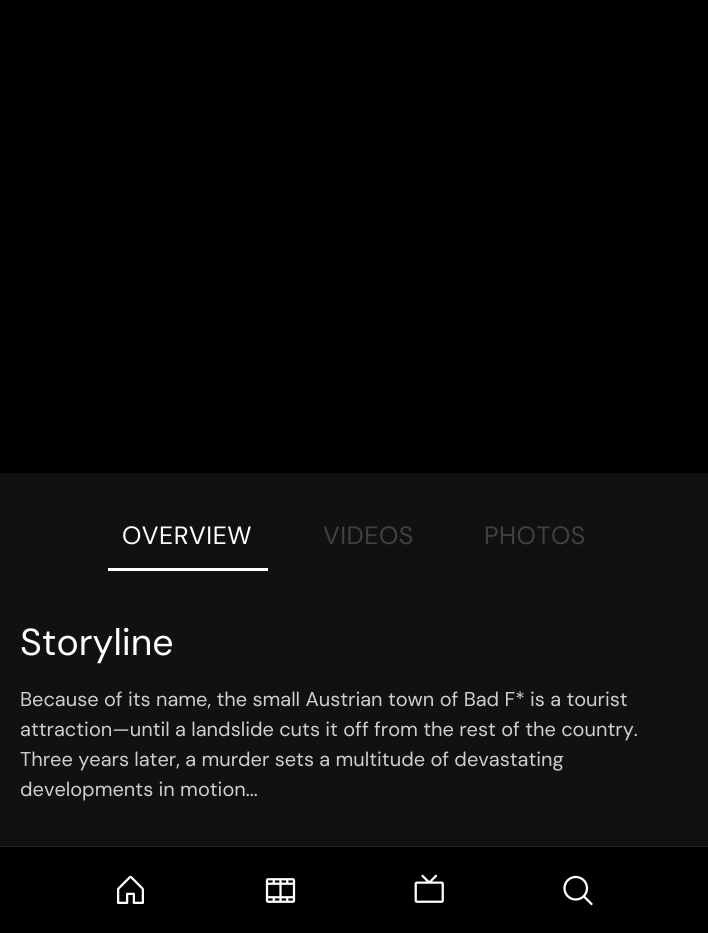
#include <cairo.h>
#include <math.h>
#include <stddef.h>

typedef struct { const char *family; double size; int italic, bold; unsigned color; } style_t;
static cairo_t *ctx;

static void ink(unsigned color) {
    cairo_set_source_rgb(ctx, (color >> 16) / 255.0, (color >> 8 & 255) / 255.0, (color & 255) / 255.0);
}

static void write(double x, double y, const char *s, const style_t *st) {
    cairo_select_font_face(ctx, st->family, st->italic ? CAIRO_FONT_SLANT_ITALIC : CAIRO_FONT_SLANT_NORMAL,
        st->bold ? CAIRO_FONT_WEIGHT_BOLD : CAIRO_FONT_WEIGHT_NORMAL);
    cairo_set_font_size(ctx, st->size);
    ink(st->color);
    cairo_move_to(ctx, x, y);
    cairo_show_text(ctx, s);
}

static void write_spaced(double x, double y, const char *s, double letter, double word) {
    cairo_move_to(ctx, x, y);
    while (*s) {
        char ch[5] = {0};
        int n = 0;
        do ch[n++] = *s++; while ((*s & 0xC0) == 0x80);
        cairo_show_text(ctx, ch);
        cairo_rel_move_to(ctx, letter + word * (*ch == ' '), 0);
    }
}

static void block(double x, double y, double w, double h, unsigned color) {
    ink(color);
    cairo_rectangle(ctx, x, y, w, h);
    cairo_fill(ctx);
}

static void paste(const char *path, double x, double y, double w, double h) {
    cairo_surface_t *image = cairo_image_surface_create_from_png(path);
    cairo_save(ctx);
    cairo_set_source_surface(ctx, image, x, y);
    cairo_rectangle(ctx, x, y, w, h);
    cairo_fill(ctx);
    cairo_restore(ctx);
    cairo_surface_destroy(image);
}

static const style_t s1 = {"DM Sans", 37.5, 0, 0, 0xffffff};
static const style_t s2 = {"DM Sans", 20, 0, 0, 0xcfcfcf};

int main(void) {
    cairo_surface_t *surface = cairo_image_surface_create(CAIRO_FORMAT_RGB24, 708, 933);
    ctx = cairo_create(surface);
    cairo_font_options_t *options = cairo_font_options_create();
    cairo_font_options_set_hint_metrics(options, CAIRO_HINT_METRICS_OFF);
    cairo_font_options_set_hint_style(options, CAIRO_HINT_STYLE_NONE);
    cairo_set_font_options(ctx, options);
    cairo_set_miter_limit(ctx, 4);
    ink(0x111111);
    cairo_paint(ctx);
    block(0, 0, 708, 473, 0x000000);
    block(108, 568, 160, 3, 0xffffff);
    cairo_select_font_face(ctx, "DM Sans", CAIRO_FONT_SLANT_NORMAL, CAIRO_FONT_WEIGHT_NORMAL);
    cairo_set_font_size(ctx, 25);
    write_spaced(122, 544, "OVERVIEW", 0.5, 0);
    ink(0x414141);
    write_spaced(323, 544, "VIDEOS", 0.5, 0);
    write_spaced(484, 544, "PHOTOS", 0.5, 0);
    write(20, 655, "Storyline", &s1);
    write(20, 706, "Because of its name, the small Austrian town of Bad F* is a tourist", &s2);
    write(20, 736, "attraction—until a landslide cuts it off from the rest of the country.", &s2);
    write(20, 766, "Three years later, a murder sets a multitude of devastating", &s2);
    write(20, 796, "developments in motion...", &s2);
    block(0, 847, 708, 86, 0x000000);
    block(0, 846, 708, 1, 0x1f2123);
    paste("pic1.png", 117, 875, 27, 29);
    paste("pic2.png", 265, 878, 31, 25);
    paste("pic3.png", 414, 874, 30, 29);
    paste("pic4.png", 563, 875, 30, 31);
    cairo_surface_write_to_png(surface, "screenshot.png");
    cairo_font_options_destroy(options);
    cairo_destroy(ctx);
    cairo_surface_destroy(surface);
    return 0;
}
